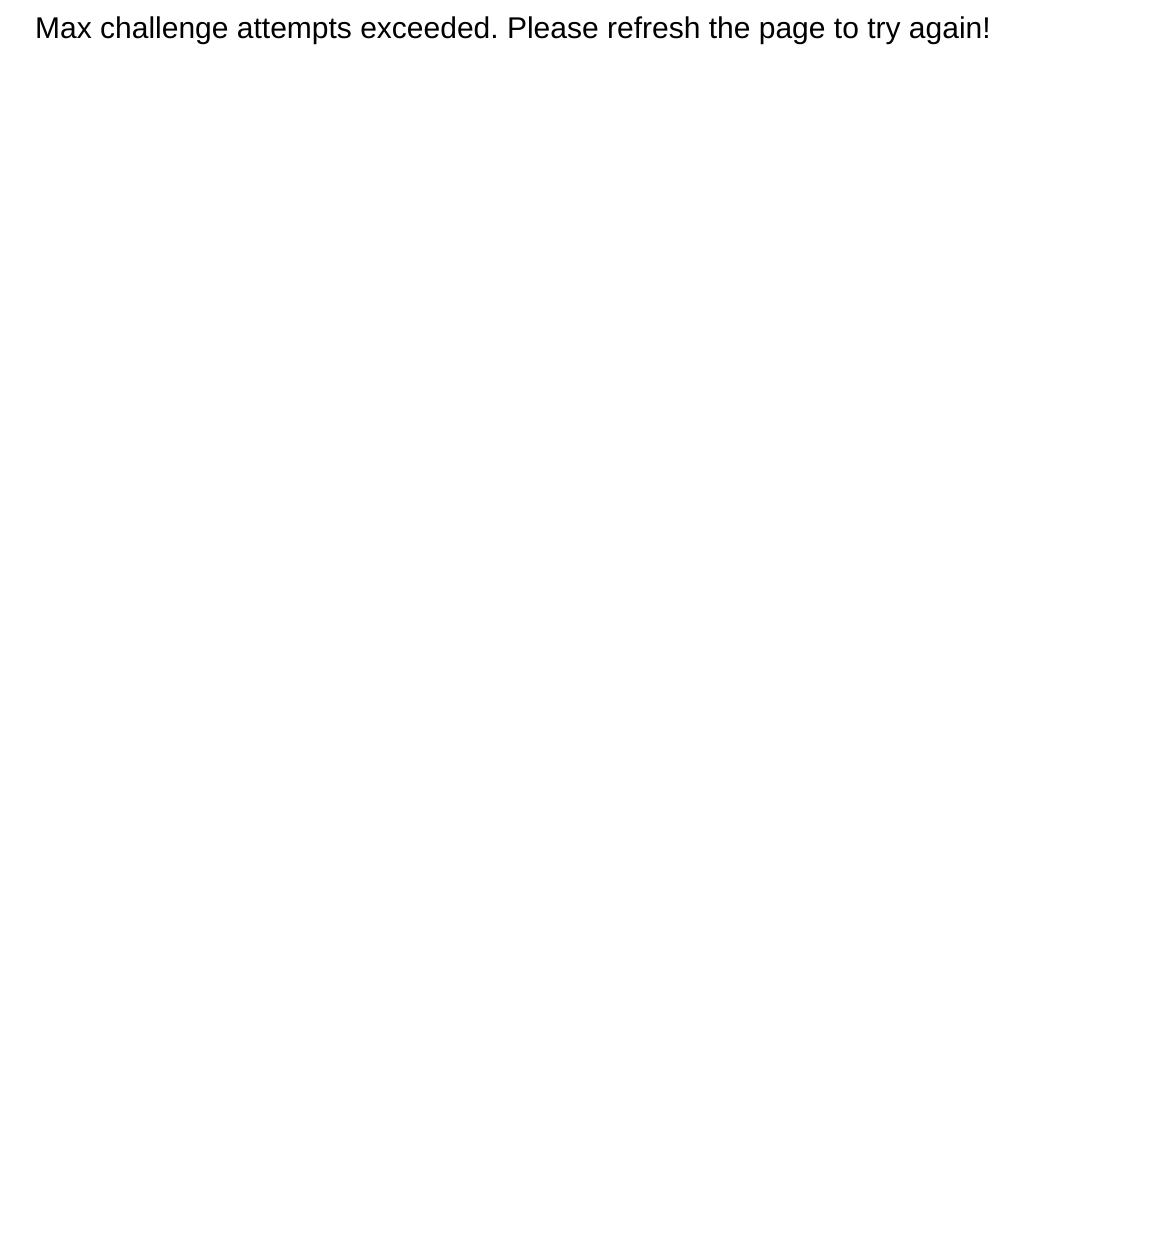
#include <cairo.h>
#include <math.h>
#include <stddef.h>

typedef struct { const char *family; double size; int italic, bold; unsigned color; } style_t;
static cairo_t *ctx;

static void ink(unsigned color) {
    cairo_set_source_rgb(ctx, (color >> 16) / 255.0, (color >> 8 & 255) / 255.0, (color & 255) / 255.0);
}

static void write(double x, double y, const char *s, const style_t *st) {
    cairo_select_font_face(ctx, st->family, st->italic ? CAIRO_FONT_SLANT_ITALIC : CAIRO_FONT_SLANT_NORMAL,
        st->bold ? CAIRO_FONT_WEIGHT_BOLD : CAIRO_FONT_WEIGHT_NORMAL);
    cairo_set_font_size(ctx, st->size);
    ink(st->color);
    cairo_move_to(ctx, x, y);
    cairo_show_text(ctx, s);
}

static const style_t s1 = {"Liberation Sans", 30, 0, 0, 0x000000};

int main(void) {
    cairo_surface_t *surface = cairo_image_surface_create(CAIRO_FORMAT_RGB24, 1162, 1247);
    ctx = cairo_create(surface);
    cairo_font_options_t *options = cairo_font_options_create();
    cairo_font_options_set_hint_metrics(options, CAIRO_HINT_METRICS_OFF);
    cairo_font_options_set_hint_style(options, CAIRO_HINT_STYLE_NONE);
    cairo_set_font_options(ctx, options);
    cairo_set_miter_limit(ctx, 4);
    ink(0xffffff);
    cairo_paint(ctx);
    write(35, 38, "Max challenge attempts exceeded. Please refresh the page to try again!", &s1);
    cairo_surface_write_to_png(surface, "screenshot.png");
    cairo_font_options_destroy(options);
    cairo_destroy(ctx);
    cairo_surface_destroy(surface);
    return 0;
}
